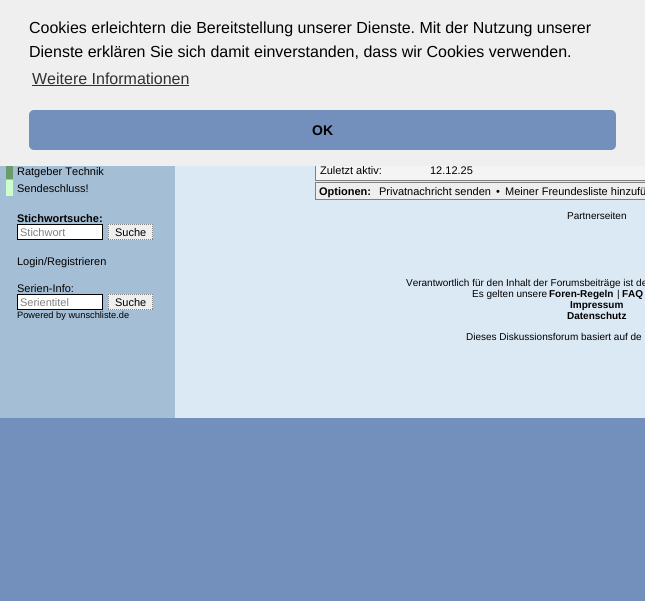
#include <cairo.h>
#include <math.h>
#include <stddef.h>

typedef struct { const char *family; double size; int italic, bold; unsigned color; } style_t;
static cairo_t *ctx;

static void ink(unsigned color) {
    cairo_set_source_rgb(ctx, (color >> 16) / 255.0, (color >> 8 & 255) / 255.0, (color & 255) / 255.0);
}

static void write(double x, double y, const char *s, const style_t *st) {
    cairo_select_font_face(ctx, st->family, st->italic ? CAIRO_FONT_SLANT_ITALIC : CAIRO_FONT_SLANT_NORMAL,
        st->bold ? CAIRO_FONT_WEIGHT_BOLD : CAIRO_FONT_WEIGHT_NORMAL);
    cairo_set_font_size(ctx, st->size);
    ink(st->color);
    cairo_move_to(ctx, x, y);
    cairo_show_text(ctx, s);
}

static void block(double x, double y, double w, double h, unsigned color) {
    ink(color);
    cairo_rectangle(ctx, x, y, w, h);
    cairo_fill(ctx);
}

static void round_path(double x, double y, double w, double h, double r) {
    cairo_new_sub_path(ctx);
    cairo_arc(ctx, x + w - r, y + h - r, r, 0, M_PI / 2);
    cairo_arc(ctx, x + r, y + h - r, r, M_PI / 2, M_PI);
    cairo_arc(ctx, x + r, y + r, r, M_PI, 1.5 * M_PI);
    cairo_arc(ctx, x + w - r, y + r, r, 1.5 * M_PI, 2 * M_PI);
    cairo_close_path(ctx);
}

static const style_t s1 = {"Liberation Sans", 16, 0, 0, 0x000000};
static const style_t s2 = {"Liberation Sans", 16, 0, 0, 0x303030};
static const style_t s3 = {"Liberation Sans", 14, 0, 1, 0x000000};
static const style_t s4 = {"Liberation Sans", 11, 0, 0, 0x000000};
static const style_t s5 = {"Liberation Sans", 11, 0, 1, 0x000000};
static const style_t s6 = {"Liberation Sans", 11, 0, 0, 0x808080};
static const style_t s7 = {"Liberation Sans", 9.25, 0, 0, 0x000000};
static const style_t s8 = {"Liberation Sans", 10, 0, 0, 0x000000};
static const style_t s9 = {"Liberation Sans", 10, 0, 1, 0x000000};

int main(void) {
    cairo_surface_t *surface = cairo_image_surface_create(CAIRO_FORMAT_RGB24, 645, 601);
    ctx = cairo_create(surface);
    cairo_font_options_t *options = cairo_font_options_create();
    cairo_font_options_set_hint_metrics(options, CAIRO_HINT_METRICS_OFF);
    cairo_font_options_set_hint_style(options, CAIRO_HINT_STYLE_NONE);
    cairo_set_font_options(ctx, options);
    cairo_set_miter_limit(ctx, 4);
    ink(0x7290bb);
    cairo_paint(ctx);
    block(0, 166, 175, 252, 0xa4bed5);
    block(6, 163, 7, 16, 0x699b6c);
    block(175, 166, 470, 252, 0xdbe9f5);
    block(316, 166, 329, 14, 0xf4f4f4);
    cairo_rectangle(ctx, 315.5, 103.5, 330, 77);
    ink(0x808080);
    cairo_set_line_width(ctx, 1);
    cairo_stroke(ctx);
    block(0, 0, 645, 166, 0xefefef);
    write(29, 33, "Cookies erleichtern die Bereitstellung unserer Dienste. Mit der Nutzung unserer", &s1);
    write(29, 57, "Dienste erklären Sie sich damit einverstanden, dass wir Cookies verwenden.", &s1);
    write(32, 84, "Weitere Informationen", &s2);
    block(32, 85, 157, 1, 0x303030);
    ink(0x7290bb);
    round_path(29, 110, 587, 40, 5);
    cairo_fill(ctx);
    write(312, 135, "OK", &s3);
    write(17, 175, "Ratgeber Technik", &s4);
    block(6, 180, 7, 16, 0xccffcc);
    write(17, 192, "Sendeschluss!", &s4);
    write(17, 222, "Stichwortsuche:", &s5);
    ink(0xffffff);
    cairo_rectangle(ctx, 17.5, 224.5, 85, 15);
    cairo_fill_preserve(ctx);
    ink(0x000000);
    cairo_stroke(ctx);
    write(20, 236, "Stichwort", &s6);
    block(108, 224, 45, 16, 0xeeeeee);
    cairo_new_path(ctx);
    cairo_move_to(ctx, 108, 224.5);
    cairo_line_to(ctx, 153, 224.5);
    cairo_move_to(ctx, 152.5, 224);
    cairo_line_to(ctx, 152.5, 240);
    cairo_move_to(ctx, 108, 239.5);
    cairo_line_to(ctx, 153, 239.5);
    cairo_move_to(ctx, 108.5, 224);
    cairo_line_to(ctx, 108.5, 240);
    ink(0x808080);
    cairo_set_dash(ctx, (double[]){1, 1}, 2, 0);
    cairo_stroke(ctx);
    write(115, 236, "Suche", &s4);
    write(17, 265, "Login/Registrieren", &s4);
    write(17, 292, "Serien-Info:", &s4);
    ink(0xffffff);
    cairo_rectangle(ctx, 17.5, 294.5, 85, 15);
    cairo_fill_preserve(ctx);
    ink(0x000000);
    cairo_set_dash(ctx, NULL, 0, 0);
    cairo_stroke(ctx);
    write(20, 306, "Serientitel", &s6);
    block(108, 294, 45, 16, 0xeeeeee);
    cairo_new_path(ctx);
    cairo_move_to(ctx, 108, 294.5);
    cairo_line_to(ctx, 153, 294.5);
    cairo_move_to(ctx, 152.5, 294);
    cairo_line_to(ctx, 152.5, 310);
    cairo_move_to(ctx, 108, 309.5);
    cairo_line_to(ctx, 153, 309.5);
    cairo_move_to(ctx, 108.5, 294);
    cairo_line_to(ctx, 108.5, 310);
    ink(0x808080);
    cairo_set_dash(ctx, (double[]){1, 1}, 2, 0);
    cairo_stroke(ctx);
    write(115, 306, "Suche", &s4);
    write(17, 318, "Powered by wunschliste.de", &s7);
    write(320, 174, "Zuletzt aktiv:", &s4);
    write(430, 174, "12.12.25", &s4);
    ink(0xeeeeee);
    cairo_rectangle(ctx, 315.5, 182.5, 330, 17);
    cairo_fill_preserve(ctx);
    ink(0x808080);
    cairo_set_dash(ctx, NULL, 0, 0);
    cairo_stroke(ctx);
    write(319, 195, "Optionen:", &s5);
    write(379, 195, "Privatnachricht senden", &s4);
    write(496, 195, "•", &s4);
    write(505, 195, "Meiner Freundesliste hinzufü", &s4);
    write(567, 219, "Partnerseiten", &s8);
    write(406, 286, "Verantwortlich für den Inhalt der Forumsbeiträge ist de", &s8);
    write(472, 297, "Es gelten unsere", &s8);
    write(549, 297, "Foren-Regeln", &s9);
    write(617, 297, "|", &s8);
    write(622, 297, "FAQ", &s9);
    write(570, 308, "Impressum", &s9);
    write(567, 319, "Datenschutz", &s9);
    write(466, 340, "Dieses Diskussionsforum basiert auf de", &s8);
    cairo_surface_write_to_png(surface, "screenshot.png");
    cairo_font_options_destroy(options);
    cairo_destroy(ctx);
    cairo_surface_destroy(surface);
    return 0;
}
